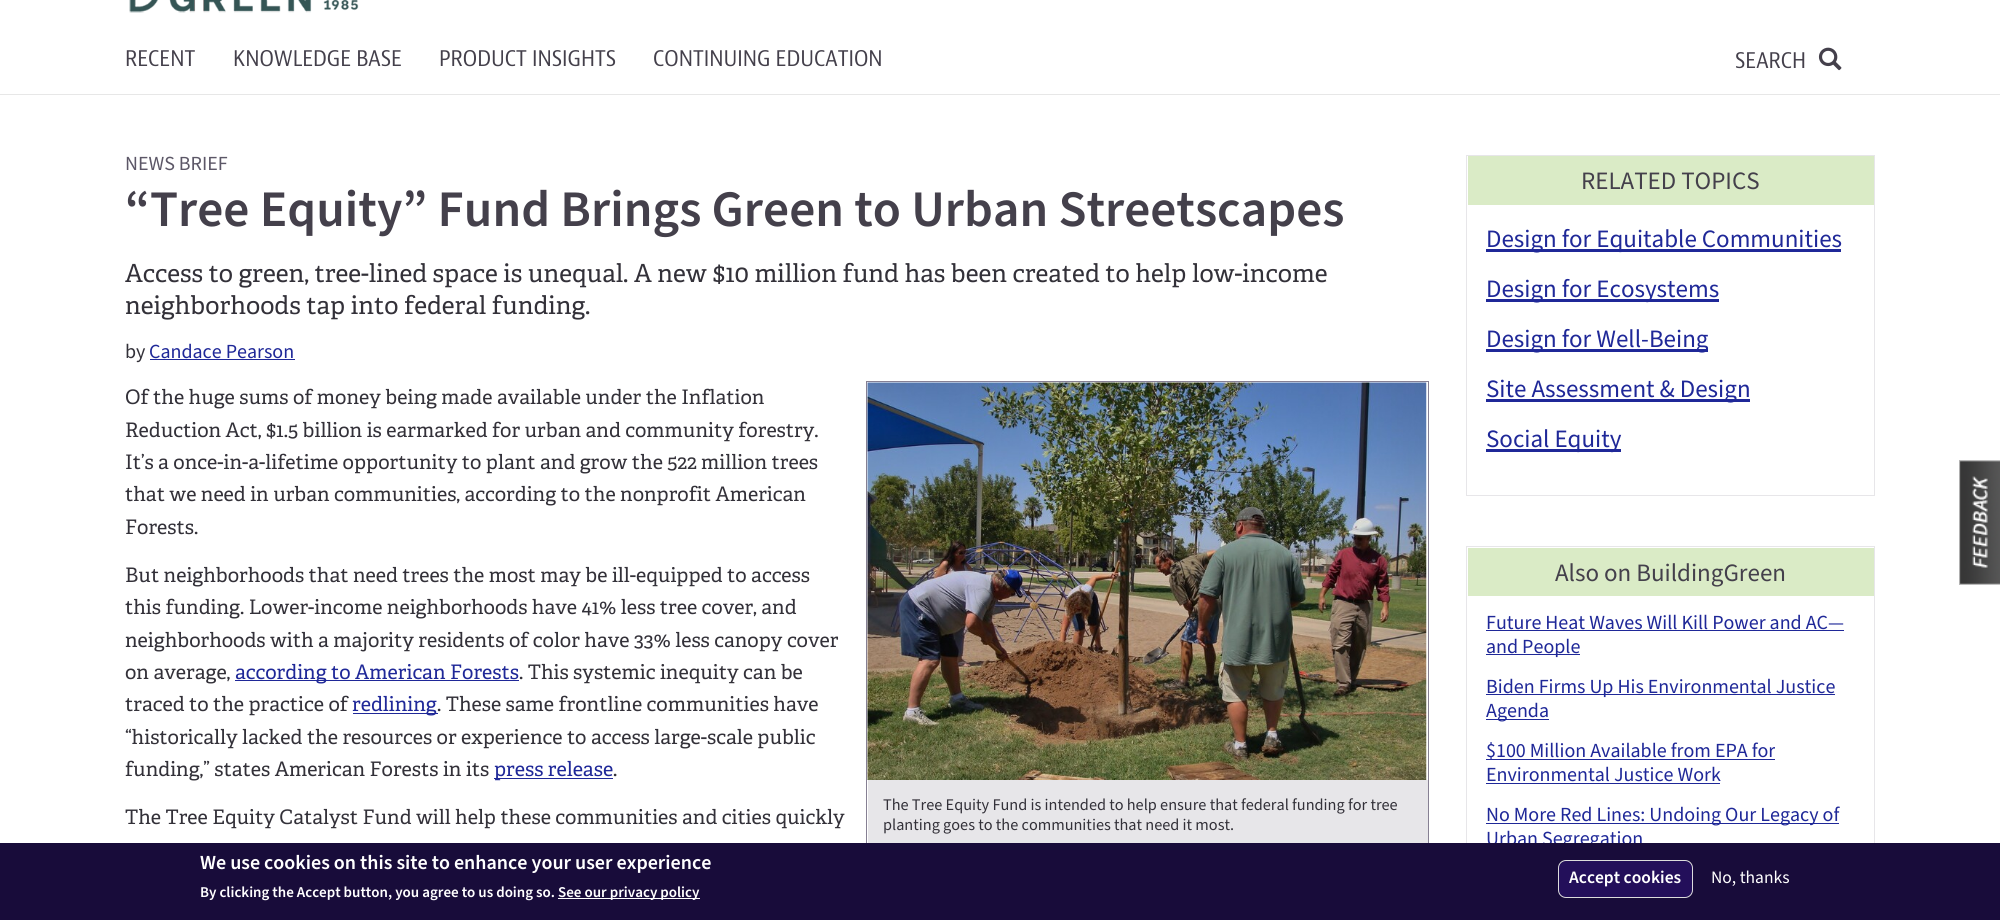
#include <cairo.h>
#include <math.h>
#include <stddef.h>

typedef struct { const char *family; double size; int italic, bold; unsigned color; } style_t;
static cairo_t *ctx;

static void ink(unsigned color) {
    cairo_set_source_rgb(ctx, (color >> 16) / 255.0, (color >> 8 & 255) / 255.0, (color & 255) / 255.0);
}

static void write(double x, double y, const char *s, const style_t *st) {
    cairo_select_font_face(ctx, st->family, st->italic ? CAIRO_FONT_SLANT_ITALIC : CAIRO_FONT_SLANT_NORMAL,
        st->bold ? CAIRO_FONT_WEIGHT_BOLD : CAIRO_FONT_WEIGHT_NORMAL);
    cairo_set_font_size(ctx, st->size);
    ink(st->color);
    cairo_move_to(ctx, x, y);
    cairo_show_text(ctx, s);
}

static void block(double x, double y, double w, double h, unsigned color) {
    ink(color);
    cairo_rectangle(ctx, x, y, w, h);
    cairo_fill(ctx);
}

static void round_path(double x, double y, double w, double h, double r) {
    cairo_new_sub_path(ctx);
    cairo_arc(ctx, x + w - r, y + h - r, r, 0, M_PI / 2);
    cairo_arc(ctx, x + r, y + h - r, r, M_PI / 2, M_PI);
    cairo_arc(ctx, x + r, y + r, r, M_PI, 1.5 * M_PI);
    cairo_arc(ctx, x + w - r, y + r, r, 1.5 * M_PI, 2 * M_PI);
    cairo_close_path(ctx);
}

static void paste(const char *path, double x, double y, double w, double h) {
    cairo_surface_t *image = cairo_image_surface_create_from_png(path);
    cairo_save(ctx);
    cairo_set_source_surface(ctx, image, x, y);
    cairo_rectangle(ctx, x, y, w, h);
    cairo_fill(ctx);
    cairo_restore(ctx);
    cairo_surface_destroy(image);
}

static const style_t s1 = {"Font", 22.5, 0, 0, 0x44404b};
static const style_t s2 = {"Source Sans Pro", 20, 0, 0, 0x5c5767};
static const style_t s3 = {"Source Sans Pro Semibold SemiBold", 51.25, 0, 0, 0x44404b};
static const style_t s4 = {"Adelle", 25, 0, 0, 0x333139};
static const style_t s5 = {"Source Sans Pro", 20, 0, 0, 0x333139};
static const style_t s6 = {"Source Sans Pro", 20, 0, 0, 0x1f2898};
static const style_t s7 = {"Adelle", 20, 0, 0, 0x333139};
static const style_t s8 = {"Adelle", 20, 0, 0, 0x1f2898};
static const style_t s9 = {"Source Sans Pro", 16.25, 0, 0, 0x333139};
static const style_t s10 = {"Source Sans Pro", 25, 0, 0, 0x44404b};
static const style_t s11 = {"Source Sans Pro", 25, 0, 0, 0x1f2898};
static const style_t s12 = {"Source Sans Pro Semibold SemiBold", 20, 0, 0, 0xffffff};
static const style_t s13 = {"Source Sans Pro Semibold SemiBold", 15, 0, 0, 0xffffff};
static const style_t s14 = {"Source Sans Pro Semibold SemiBold", 17.5, 0, 0, 0xffffff};
static const style_t s15 = {"Source Sans Pro", 17.5, 0, 0, 0xffffff};

int main(void) {
    cairo_surface_t *surface = cairo_image_surface_create(CAIRO_FORMAT_RGB24, 2000, 920);
    ctx = cairo_create(surface);
    cairo_font_options_t *options = cairo_font_options_create();
    cairo_font_options_set_hint_metrics(options, CAIRO_HINT_METRICS_OFF);
    cairo_font_options_set_hint_style(options, CAIRO_HINT_STYLE_NONE);
    cairo_set_font_options(ctx, options);
    cairo_set_miter_limit(ctx, 4);
    ink(0xffffff);
    cairo_paint(ctx);
    paste("pic1.png", 129, 0, 230, 13);
    block(0, 94, 2000, 1, 0xe7e7e7);
    write(125, 66, "RECENT", &s1);
    write(233, 66, "KNOWLEDGE BASE", &s1);
    write(439, 66, "PRODUCT INSIGHTS", &s1);
    write(653, 66, "CONTINUING EDUCATION", &s1);
    write(1735, 68, "SEARCH", &s1);
    paste("pic2.png", 1818, 47, 24, 24);
    write(125, 170, "NEWS BRIEF", &s2);
    write(125, 226, "“Tree Equity” Fund Brings Green to Urban Streetscapes", &s3);
    write(125, 282, "Access to green, tree-lined space is unequal. A new $10 million fund has been created to help low-income", &s4);
    write(125, 314, "neighborhoods tap into federal funding.", &s4);
    write(125, 358, "by", &s5);
    write(149, 358, "Candace Pearson", &s6);
    block(150, 359, 145, 1, 0x1f2898);
    write(125, 404, "Of the huge sums of money being made available under the Inflation", &s7);
    write(125, 437, "Reduction Act, $1.5 billion is earmarked for urban and community forestry.", &s7);
    write(125, 469, "It’s a once-in-a-lifetime opportunity to plant and grow the 522 million trees", &s7);
    write(125, 501, "that we need in urban communities, according to the nonprofit American", &s7);
    write(125, 534, "Forests.", &s7);
    write(125, 582, "But neighborhoods that need trees the most may be ill-equipped to access", &s7);
    write(125, 614, "this funding. Lower-income neighborhoods have 41% less tree cover, and", &s7);
    write(125, 647, "neighborhoods with a majority residents of color have 33% less canopy cover", &s7);
    write(125, 679, "on average,", &s7);
    block(235, 680, 284, 1, 0x1f2898);
    write(235, 679, "according to American Forests", &s8);
    write(519, 679, ". This systemic inequity can be", &s7);
    write(125, 711, "traced to the practice of", &s7);
    block(353, 713, 85, 1, 0x1f2898);
    write(352, 711, "redlining", &s8);
    write(437, 711, ". These same frontline communities have", &s7);
    write(125, 744, "“historically lacked the resources or experience to access large-scale public", &s7);
    write(125, 776, "funding,” states American Forests in its", &s7);
    block(494, 778, 119, 1, 0x1f2898);
    write(494, 776, "press release", &s8);
    write(613, 776, ".", &s7);
    write(125, 824, "The Tree Equity Catalyst Fund will help these communities and cities quickly", &s7);
    cairo_rectangle(ctx, 866.5, 381.5, 562, 497);
    ink(0x868093);
    cairo_set_line_width(ctx, 1);
    cairo_stroke(ctx);
    paste("pic3.png", 867, 382, 560, 398);
    block(868, 780, 560, 63, 0xe7e6e9);
    write(883, 810, "The Tree Equity Fund is intended to help ensure that federal funding for tree", &s9);
    write(883, 830, "planting goes to the communities that need it most.", &s9);
    cairo_rectangle(ctx, 1466.5, 155.5, 408, 340);
    ink(0xe7e6e9);
    cairo_stroke(ctx);
    block(1468, 156, 406, 49, 0xdaebc6);
    write(1581, 189, "RELATED TOPICS", &s10);
    block(1486, 249, 355, 3, 0x1f2898);
    write(1486, 247, "Design for Equitable Communities", &s11);
    block(1486, 299, 233, 3, 0x1f2898);
    write(1486, 297, "Design for Ecosystems", &s11);
    block(1486, 349, 222, 3, 0x1f2898);
    write(1486, 347, "Design for Well-Being", &s11);
    block(1486, 399, 264, 3, 0x1f2898);
    write(1486, 397, "Site Assessment & Design", &s11);
    block(1486, 449, 135, 3, 0x1f2898);
    write(1486, 447, "Social Equity", &s11);
    cairo_rectangle(ctx, 1466.5, 546.5, 408, 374);
    ink(0xe7e6e9);
    cairo_stroke(ctx);
    block(1468, 548, 406, 48, 0xdaebc6);
    write(1555, 581, "Also on BuildingGreen", &s10);
    write(1486, 629, "Future Heat Waves Will Kill Power and AC—", &s6);
    block(1486, 630, 358, 1, 0x1f2898);
    block(1486, 654, 94, 1, 0x1f2898);
    write(1486, 653, "and People", &s6);
    block(1486, 694, 349, 1, 0x1f2898);
    write(1486, 693, "Biden Firms Up His Environmental Justice", &s6);
    block(1486, 719, 63, 1, 0x1f2898);
    write(1486, 717, "Agenda", &s6);
    block(1486, 759, 289, 1, 0x1f2898);
    write(1486, 757, "$100 Million Available from EPA for", &s6);
    write(1486, 781, "Environmental Justice Work", &s6);
    block(1486, 783, 234, 1, 0x1f2898);
    block(1486, 823, 353, 1, 0x1f2898);
    write(1486, 821, "No More Red Lines: Undoing Our Legacy of", &s6);
    write(1486, 845, "Urban Segregation", &s6);
    paste("pic4.png", 1959, 460, 41, 125);
    block(0, 843, 2000, 77, 0x180c3a);
    write(200, 869, "We use cookies on this site to enhance your user experience", &s12);
    write(200, 897, "By clicking the Accept button, you agree to us doing so.", &s13);
    block(558, 898, 142, 1, 0xffffff);
    write(558, 897, "See our privacy policy", &s13);
    ink(0x230f5a);
    round_path(1558.5, 860.5, 134, 37, 7.5);
    cairo_fill_preserve(ctx);
    ink(0xdcdcdc);
    cairo_stroke(ctx);
    write(1569, 883, "Accept cookies", &s14);
    write(1711, 883, "No, thanks", &s15);
    cairo_surface_write_to_png(surface, "screenshot.png");
    cairo_font_options_destroy(options);
    cairo_destroy(ctx);
    cairo_surface_destroy(surface);
    return 0;
}
